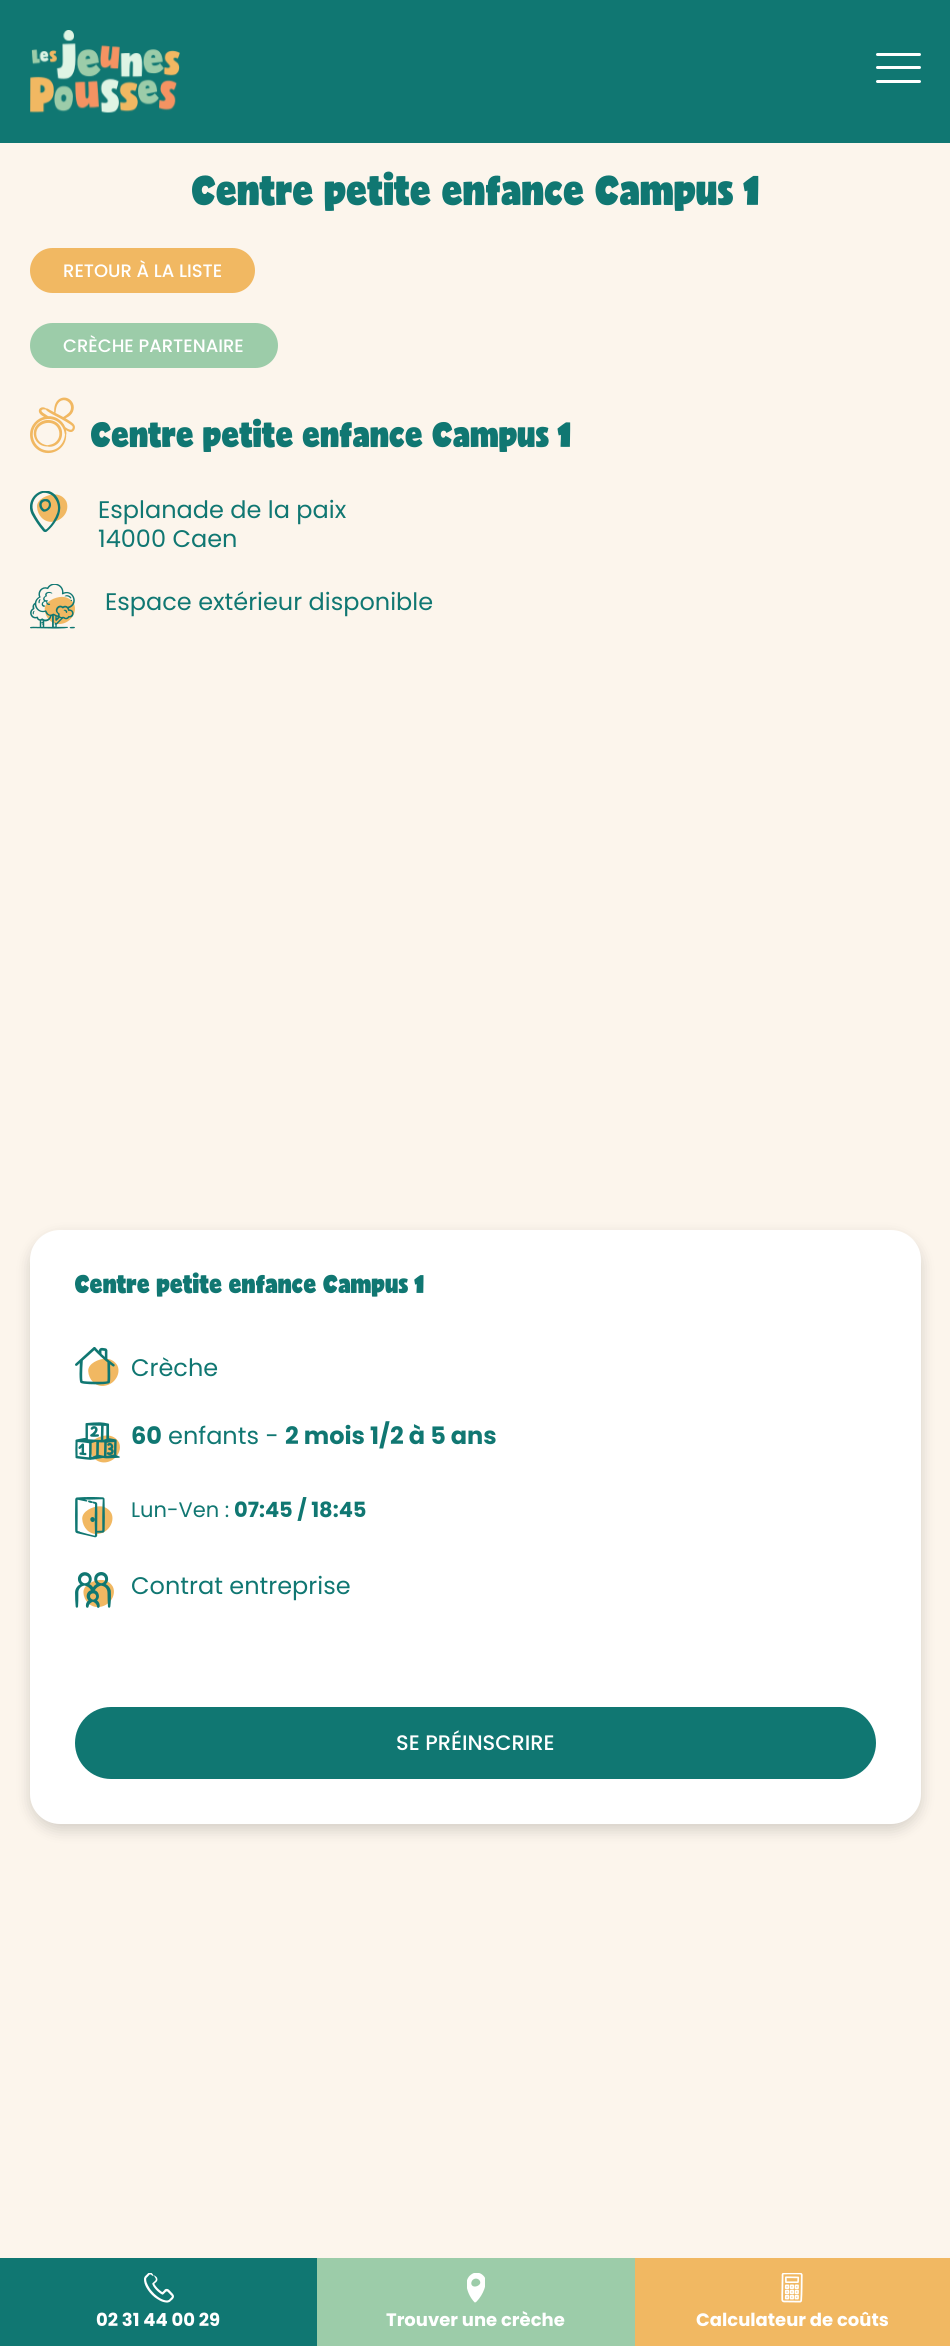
#include <cairo.h>
#include <math.h>
#include <stddef.h>

typedef struct { const char *family; double size; int italic, bold; unsigned color; } style_t;
static cairo_t *ctx;

static void ink(unsigned color) {
    cairo_set_source_rgb(ctx, (color >> 16) / 255.0, (color >> 8 & 255) / 255.0, (color & 255) / 255.0);
}

static void write(double x, double y, const char *s, const style_t *st) {
    cairo_select_font_face(ctx, st->family, st->italic ? CAIRO_FONT_SLANT_ITALIC : CAIRO_FONT_SLANT_NORMAL,
        st->bold ? CAIRO_FONT_WEIGHT_BOLD : CAIRO_FONT_WEIGHT_NORMAL);
    cairo_set_font_size(ctx, st->size);
    ink(st->color);
    cairo_move_to(ctx, x, y);
    cairo_show_text(ctx, s);
}

static void block(double x, double y, double w, double h, unsigned color) {
    ink(color);
    cairo_rectangle(ctx, x, y, w, h);
    cairo_fill(ctx);
}

static void round_path(double x, double y, double w, double h, double r) {
    cairo_new_sub_path(ctx);
    cairo_arc(ctx, x + w - r, y + h - r, r, 0, M_PI / 2);
    cairo_arc(ctx, x + r, y + h - r, r, M_PI / 2, M_PI);
    cairo_arc(ctx, x + r, y + r, r, M_PI, 1.5 * M_PI);
    cairo_arc(ctx, x + w - r, y + r, r, 1.5 * M_PI, 2 * M_PI);
    cairo_close_path(ctx);
}

static void blur_box(double x, double y, double w, double h, double r, double blur, double alpha) {
    cairo_push_group_with_content(ctx, CAIRO_CONTENT_ALPHA);
    cairo_set_operator(ctx, CAIRO_OPERATOR_SOURCE);
    for (int i = 15; i >= -15 && fmin(w, h) + blur * i / 3 > 0; i -= 2) {
        double e = blur * i / 6;
        cairo_set_source_rgba(ctx, 0, 0, 0, alpha * erfc((i - 1) / 8.5) / 2);
        round_path(x - e, y - e, w + 2 * e, h + 2 * e, fmax(0, fmin(r + e + blur * .6, fmin(w, h) / 2 + e)));
        cairo_fill(ctx);
    }
    cairo_pattern_t *soft = cairo_pop_group(ctx);
    cairo_mask(ctx, soft);
    cairo_pattern_destroy(soft);
}

static void paste(const char *path, double x, double y, double w, double h) {
    cairo_surface_t *image = cairo_image_surface_create_from_png(path);
    cairo_save(ctx);
    cairo_set_source_surface(ctx, image, x, y);
    cairo_rectangle(ctx, x, y, w, h);
    cairo_fill(ctx);
    cairo_restore(ctx);
    cairo_surface_destroy(image);
}

static const style_t s1 = {"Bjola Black", 39, 0, 0, 0x107772};
static const style_t s2 = {"Poppins Medium", 18, 0, 0, 0xffffff};
static const style_t s3 = {"Bjola Black", 33, 0, 0, 0x107772};
static const style_t s4 = {"Poppins", 24, 0, 0, 0x107772};
static const style_t s5 = {"Bjola Black", 24, 0, 0, 0x107772};
static const style_t s6 = {"Poppins", 24, 0, 1, 0x107772};
static const style_t s7 = {"Poppins", 21, 0, 0, 0x107772};
static const style_t s8 = {"Poppins", 21, 0, 1, 0x107772};
static const style_t s9 = {"Poppins Medium", 21, 0, 0, 0xffffff};
static const style_t s10 = {"Poppins", 18, 0, 1, 0xffffff};

int main(void) {
    cairo_surface_t *surface = cairo_image_surface_create(CAIRO_FORMAT_RGB24, 950, 2346);
    ctx = cairo_create(surface);
    cairo_font_options_t *options = cairo_font_options_create();
    cairo_font_options_set_hint_metrics(options, CAIRO_HINT_METRICS_OFF);
    cairo_font_options_set_hint_style(options, CAIRO_HINT_STYLE_NONE);
    cairo_set_font_options(ctx, options);
    cairo_set_miter_limit(ctx, 4);
    ink(0xfcf5ec);
    cairo_paint(ctx);
    block(0, 0, 950, 143, 0x107772);
    paste("pic1.png", 30, 30, 150, 83);
    ink(0xffffff);
    round_path(876, 53, 45, 3, 1.5);
    cairo_fill(ctx);
    round_path(876, 66, 45, 3, 1.5);
    cairo_fill(ctx);
    round_path(876, 80, 45, 3, 1.5);
    cairo_fill(ctx);
    write(192, 205, "Centre petite enfance Campus 1", &s1);
    ink(0xf1b862);
    round_path(30, 248, 225, 45, 22.5);
    cairo_fill(ctx);
    write(63, 277, "RETOUR À LA LISTE", &s2);
    ink(0x9ccca9);
    round_path(30, 323, 248, 45, 22.5);
    cairo_fill(ctx);
    write(63, 352, "CRÈCHE PARTENAIRE", &s2);
    paste("pic2.png", 30, 397, 45, 57);
    write(91, 447, "Centre petite enfance Campus 1", &s3);
    paste("pic3.png", 30, 491, 38, 42);
    write(98, 518, "Esplanade de la paix", &s4);
    write(98, 547, "14000 Caen", &s4);
    paste("pic4.png", 30, 584, 45, 45);
    write(105, 610, "Espace extérieur disponible", &s4);
    ink(0x000000);
    blur_box(30, 1236, 891, 594, 30, 7.5, 0.16);
    ink(0xffffff);
    round_path(30, 1230, 891, 594, 30);
    cairo_fill(ctx);
    write(75, 1293, "Centre petite enfance Campus 1", &s5);
    paste("pic5.png", 75, 1347, 44, 39);
    write(131, 1376, "Crèche", &s4);
    paste("pic6.png", 75, 1422, 45, 41);
    write(131, 1444, "60", &s6);
    write(168, 1444, "enfants -", &s4);
    write(285, 1444, "2 mois 1/2 à 5 ans", &s6);
    paste("pic7.png", 75, 1497, 38, 41);
    write(131, 1517, "Lun-Ven :", &s7);
    write(234, 1517, "07:45 / 18:45", &s8);
    paste("pic8.png", 75, 1572, 39, 36);
    write(131, 1594, "Contrat entreprise", &s4);
    round_path(75, 1707, 801, 72, 36);
    cairo_fill(ctx);
    write(396, 1750, "SE PRÉINSCRIRE", &s9);
    block(0, 2258, 317, 88, 0x107772);
    paste("pic9.png", 144, 2273, 30, 30);
    write(96, 2326, "02 31 44 00 29", &s10);
    block(317, 2258, 318, 88, 0x9ccca9);
    paste("pic10.png", 467, 2273, 18, 30);
    write(386, 2326, "Trouver une crèche", &s10);
    block(635, 2258, 315, 88, 0xf1b862);
    paste("pic11.png", 781, 2273, 22, 30);
    write(696, 2326, "Calculateur de coûts", &s10);
    cairo_surface_write_to_png(surface, "screenshot.png");
    cairo_font_options_destroy(options);
    cairo_destroy(ctx);
    cairo_surface_destroy(surface);
    return 0;
}
